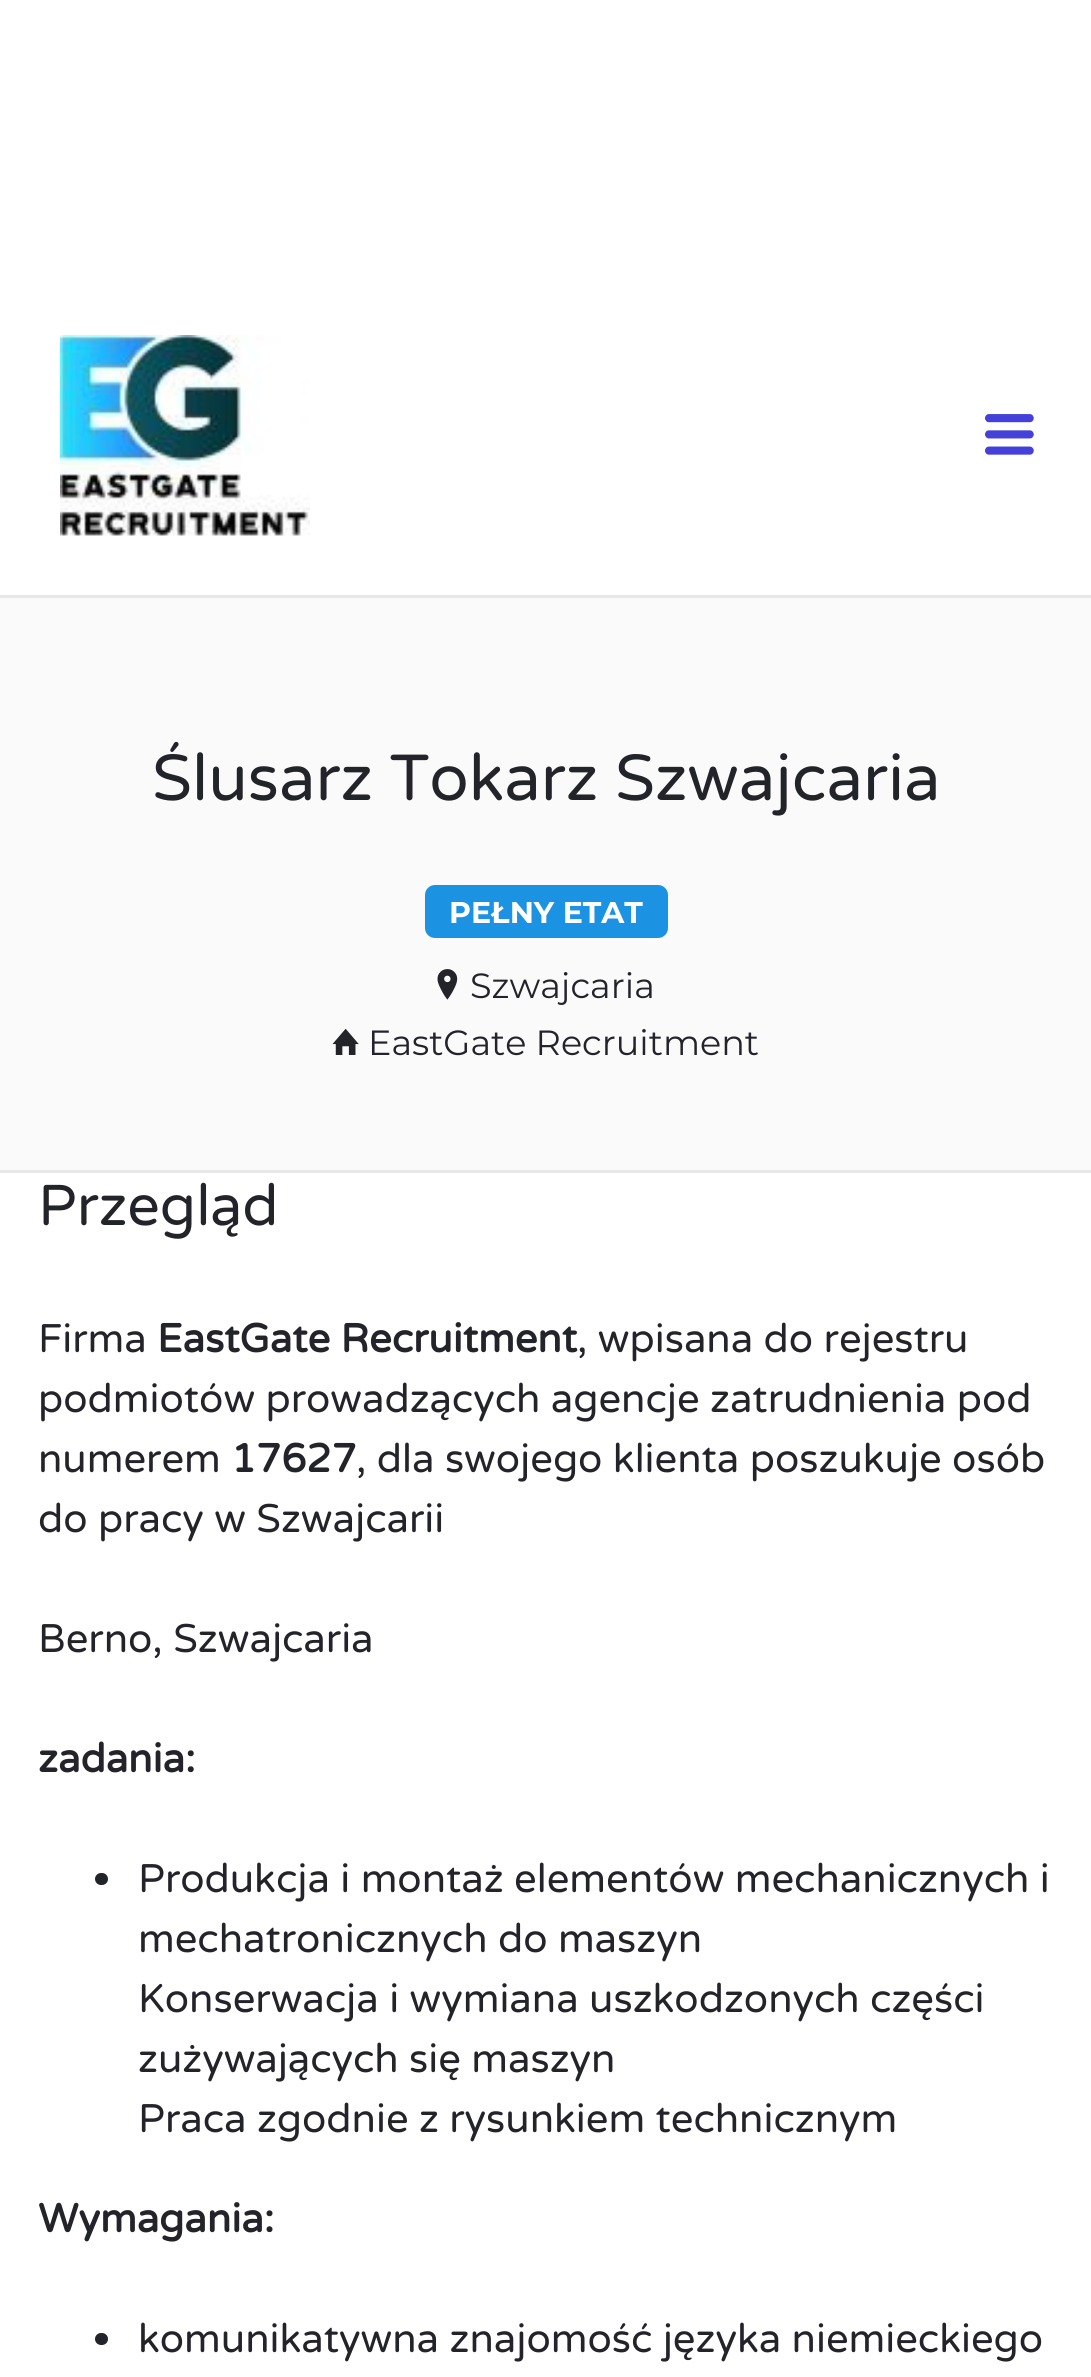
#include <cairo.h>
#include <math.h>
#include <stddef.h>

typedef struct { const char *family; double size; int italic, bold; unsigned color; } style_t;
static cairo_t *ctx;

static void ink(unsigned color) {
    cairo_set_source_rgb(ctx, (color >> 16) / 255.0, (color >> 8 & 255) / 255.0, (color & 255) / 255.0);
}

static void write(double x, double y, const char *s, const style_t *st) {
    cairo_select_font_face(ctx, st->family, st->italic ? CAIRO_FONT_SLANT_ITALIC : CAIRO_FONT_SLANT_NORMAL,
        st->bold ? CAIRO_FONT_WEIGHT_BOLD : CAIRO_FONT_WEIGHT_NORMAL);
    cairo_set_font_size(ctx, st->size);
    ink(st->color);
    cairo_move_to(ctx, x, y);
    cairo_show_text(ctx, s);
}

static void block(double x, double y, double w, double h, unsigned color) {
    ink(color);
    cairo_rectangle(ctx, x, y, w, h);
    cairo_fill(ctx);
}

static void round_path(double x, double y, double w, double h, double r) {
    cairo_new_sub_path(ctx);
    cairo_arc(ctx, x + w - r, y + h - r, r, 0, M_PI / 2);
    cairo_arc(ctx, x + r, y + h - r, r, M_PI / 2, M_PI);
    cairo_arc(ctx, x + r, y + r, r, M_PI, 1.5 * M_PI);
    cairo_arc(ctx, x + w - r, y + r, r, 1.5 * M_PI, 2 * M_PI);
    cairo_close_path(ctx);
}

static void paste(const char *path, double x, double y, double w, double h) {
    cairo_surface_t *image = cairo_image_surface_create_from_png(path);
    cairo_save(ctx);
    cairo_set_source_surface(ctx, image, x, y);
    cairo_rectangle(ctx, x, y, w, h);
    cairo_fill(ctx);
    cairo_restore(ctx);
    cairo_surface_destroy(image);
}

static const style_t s1 = {"Varela Round", 65, 0, 0, 0x23232a};
static const style_t s2 = {"Montserrat", 30, 0, 1, 0xffffff};
static const style_t s3 = {"Montserrat", 35, 0, 0, 0x23232a};
static const style_t s4 = {"Varela Round", 57.5, 0, 0, 0x23232a};
static const style_t s5 = {"Varela Round", 40, 0, 0, 0x23232a};
static const style_t s6 = {"Varela Round", 40, 0, 1, 0x23232a};

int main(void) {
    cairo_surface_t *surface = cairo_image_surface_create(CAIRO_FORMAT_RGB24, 1091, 2377);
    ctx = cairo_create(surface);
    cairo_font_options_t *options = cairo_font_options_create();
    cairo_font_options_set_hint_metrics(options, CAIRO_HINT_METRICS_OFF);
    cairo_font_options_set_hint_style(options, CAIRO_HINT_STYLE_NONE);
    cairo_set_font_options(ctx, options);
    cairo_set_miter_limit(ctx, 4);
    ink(0xffffff);
    cairo_paint(ctx);
    block(0, 595, 1091, 3, 0xe6e6e6);
    paste("pic1.png", 60, 335, 250, 201);
    paste("pic2.png", 985, 414, 49, 41);
    block(0, 598, 1091, 572, 0xfafafa);
    block(0, 1170, 1091, 3, 0xe7e7e7);
    write(152, 800, "Ślusarz Tokarz Szwajcaria", &s1);
    ink(0x1c93e2);
    round_path(425, 885, 243, 53, 10);
    cairo_fill(ctx);
    write(449, 923, "PEŁNY ETAT", &s2);
    paste("pic3.png", 437, 969, 21, 31);
    write(470, 998, "Szwajcaria", &s3);
    paste("pic4.png", 332, 1028, 27, 27);
    write(368, 1055, "EastGate Recruitment", &s3);
    write(38, 1225, "Przegląd", &s4);
    write(38, 1352, "Firma", &s5);
    write(157, 1352, "EastGate Recruitment", &s6);
    write(577, 1352, ", wpisana do rejestru", &s5);
    write(38, 1412, "podmiotów prowadzących agencje zatrudnienia pod", &s5);
    write(38, 1472, "numerem", &s5);
    write(231, 1472, "17627", &s6);
    write(356, 1472, ", dla swojego klienta poszukuje osób", &s5);
    write(38, 1532, "do pracy w Szwajcarii", &s5);
    write(38, 1652, "Berno, Szwajcaria", &s5);
    write(38, 1772, "zadania:", &s6);
    round_path(95, 1873, 13, 12, 6);
    cairo_fill(ctx);
    write(138, 1892, "Produkcja i montaż elementów mechanicznych i", &s5);
    write(138, 1952, "mechatronicznych do maszyn", &s5);
    write(138, 2012, "Konserwacja i wymiana uszkodzonych części", &s5);
    write(138, 2072, "zużywających się maszyn", &s5);
    write(138, 2132, "Praca zgodnie z rysunkiem technicznym", &s5);
    write(38, 2232, "Wymagania:", &s6);
    round_path(95, 2333, 13, 12, 6);
    cairo_fill(ctx);
    write(138, 2352, "komunikatywna znajomość języka niemieckiego", &s5);
    cairo_surface_write_to_png(surface, "screenshot.png");
    cairo_font_options_destroy(options);
    cairo_destroy(ctx);
    cairo_surface_destroy(surface);
    return 0;
}
